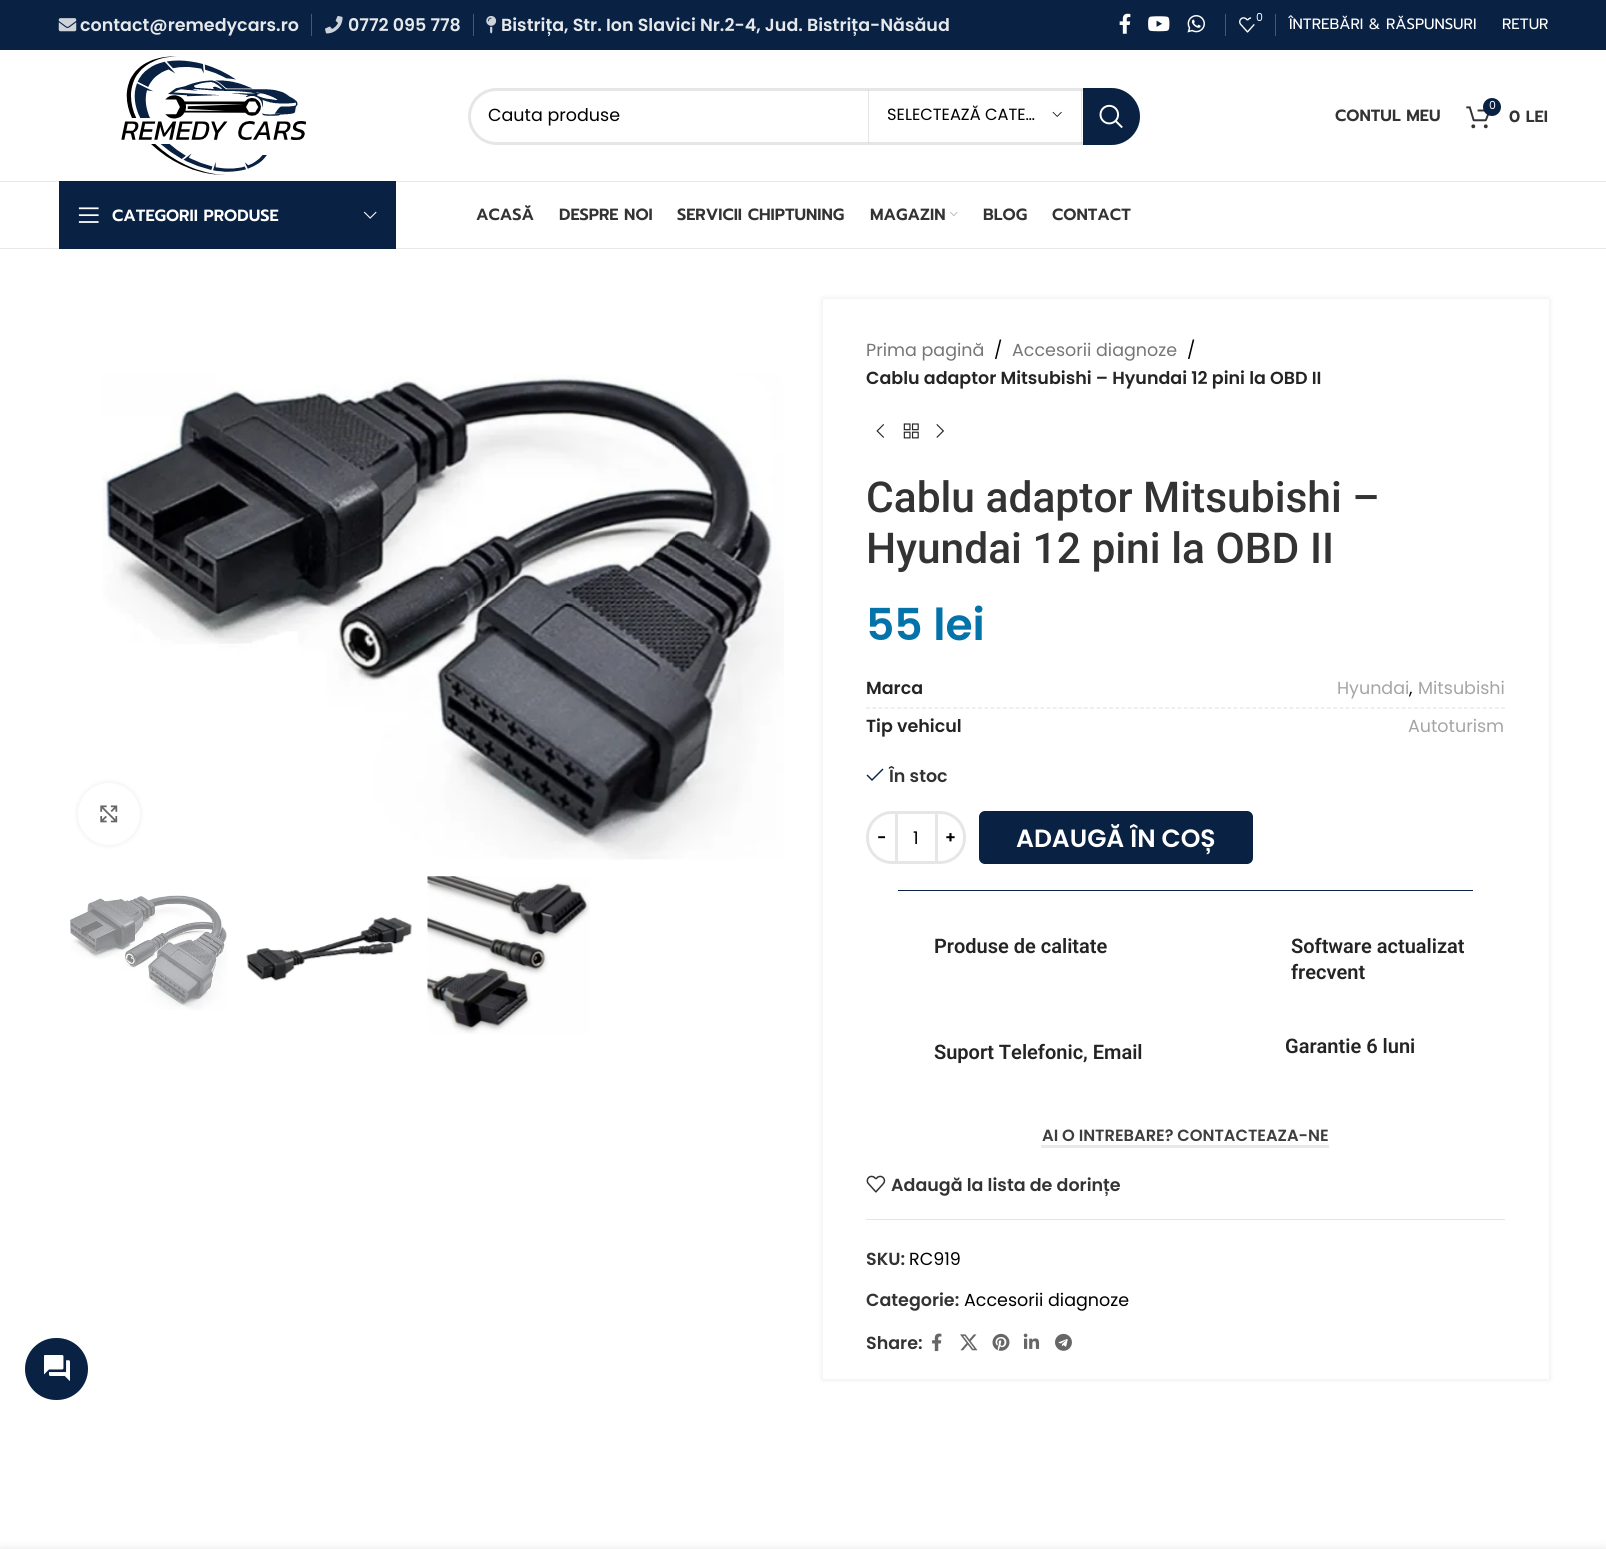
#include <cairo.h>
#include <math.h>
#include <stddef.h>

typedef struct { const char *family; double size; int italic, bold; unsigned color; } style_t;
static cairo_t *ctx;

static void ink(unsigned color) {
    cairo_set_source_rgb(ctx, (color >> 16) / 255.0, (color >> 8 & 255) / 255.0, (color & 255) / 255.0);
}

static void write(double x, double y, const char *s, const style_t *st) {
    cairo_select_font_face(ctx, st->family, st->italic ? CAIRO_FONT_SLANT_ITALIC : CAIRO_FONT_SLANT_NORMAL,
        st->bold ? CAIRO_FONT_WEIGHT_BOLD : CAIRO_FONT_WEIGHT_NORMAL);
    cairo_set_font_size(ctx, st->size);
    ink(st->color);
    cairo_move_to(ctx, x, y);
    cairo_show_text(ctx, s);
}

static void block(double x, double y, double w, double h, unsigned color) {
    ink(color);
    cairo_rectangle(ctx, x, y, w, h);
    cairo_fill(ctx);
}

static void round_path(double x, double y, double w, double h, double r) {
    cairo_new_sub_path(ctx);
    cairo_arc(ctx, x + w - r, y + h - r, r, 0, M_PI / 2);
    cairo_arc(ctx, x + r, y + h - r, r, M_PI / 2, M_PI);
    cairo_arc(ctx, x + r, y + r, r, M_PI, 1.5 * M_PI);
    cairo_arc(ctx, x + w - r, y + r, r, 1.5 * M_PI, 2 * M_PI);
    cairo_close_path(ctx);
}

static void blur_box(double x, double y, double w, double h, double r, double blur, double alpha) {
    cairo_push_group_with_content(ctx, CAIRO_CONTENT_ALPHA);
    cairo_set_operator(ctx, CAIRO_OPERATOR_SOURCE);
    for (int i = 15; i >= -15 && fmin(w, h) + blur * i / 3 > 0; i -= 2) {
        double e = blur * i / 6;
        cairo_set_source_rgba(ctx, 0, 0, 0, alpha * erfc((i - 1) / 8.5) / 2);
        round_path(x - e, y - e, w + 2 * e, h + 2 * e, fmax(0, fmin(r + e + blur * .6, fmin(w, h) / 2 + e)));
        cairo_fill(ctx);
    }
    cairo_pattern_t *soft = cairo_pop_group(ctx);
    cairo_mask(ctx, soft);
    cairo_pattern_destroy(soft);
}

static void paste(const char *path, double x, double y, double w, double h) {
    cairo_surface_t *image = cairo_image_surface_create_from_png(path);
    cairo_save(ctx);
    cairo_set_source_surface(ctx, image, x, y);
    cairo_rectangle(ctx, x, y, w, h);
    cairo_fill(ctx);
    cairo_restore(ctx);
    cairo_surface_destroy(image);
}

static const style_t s1 = {"Poppins SemiBold", 17.5, 0, 0, 0xe6e9ec};
static const style_t s2 = {"Poppins", 11, 0, 0, 0xffffff};
static const style_t s3 = {"Prompt", 15, 0, 0, 0xffffff};
static const style_t s4 = {"Poppins", 17.5, 0, 0, 0x000000};
static const style_t s5 = {"Poppins", 16.25, 0, 0, 0x000000};
static const style_t s6 = {"Prompt SemiBold", 16.25, 0, 0, 0x333333};
static const style_t s7 = {"Prompt SemiBold", 16.25, 0, 0, 0xffffff};
static const style_t s8 = {"Poppins", 17.5, 0, 0, 0x767676};
static const style_t s9 = {"Poppins SemiBold", 17.5, 0, 0, 0x242424};
static const style_t s10 = {"Roboto Medium", 42.5, 0, 0, 0x333333};
static const style_t s11 = {"Poppins SemiBold", 44, 0, 0, 0x0473aa};
static const style_t s12 = {"Poppins", 17.5, 0, 0, 0xa5a5a5};
static const style_t s13 = {"Poppins SemiBold", 17.5, 0, 0, 0x333333};
static const style_t s14 = {"Poppins SemiBold", 16.25, 0, 0, 0x000000};
static const style_t s15 = {"Poppins SemiBold", 25, 0, 0, 0xffffff};
static const style_t s16 = {"Roboto SemiBold", 20, 0, 0, 0x242424};
static const style_t s17 = {"Poppins SemiBold", 16.25, 0, 0, 0x3e3e3e};

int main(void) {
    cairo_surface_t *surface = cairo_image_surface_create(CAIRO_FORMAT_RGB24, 1606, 1549);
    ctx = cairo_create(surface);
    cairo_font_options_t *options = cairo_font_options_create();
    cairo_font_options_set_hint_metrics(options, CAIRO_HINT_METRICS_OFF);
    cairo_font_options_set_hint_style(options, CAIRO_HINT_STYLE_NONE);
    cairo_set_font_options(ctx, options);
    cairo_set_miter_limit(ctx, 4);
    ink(0xffffff);
    cairo_paint(ctx);
    block(0, 0, 1606, 50, 0x092143);
    paste("pic1.png", 58, 18, 19, 14);
    write(80, 31, "contact@remedycars.ro", &s1);
    block(311, 14, 1, 22, 0x475972);
    paste("pic2.png", 325, 16, 18, 18);
    write(348, 31, "0772 095 778", &s1);
    block(473, 14, 1, 22, 0x475972);
    paste("pic3.png", 486, 15, 11, 19);
    write(501, 31, "Bistrița, Str. Ion Slavici Nr.2-4, Jud. Bistrița-Năsăud", &s1);
    paste("pic4.png", 1119, 13, 12, 21);
    paste("pic5.png", 1148, 16, 22, 16);
    paste("pic6.png", 1187, 15, 18, 18);
    block(1225, 14, 1, 22, 0x475972);
    paste("pic7.png", 1239, 17, 17, 16);
    ink(0x092143);
    round_path(1251, 10, 17, 16, 8);
    cairo_fill(ctx);
    write(1256, 21, "0", &s2);
    block(1275, 14, 1, 22, 0x475972);
    write(1289, 29, "ÎNTREBĂRI & RĂSPUNSURI", &s3);
    write(1502, 29, "RETUR", &s3);
    block(0, 181, 1606, 1, 0xe8e8e8);
    paste("pic8.png", 121, 56, 185, 119);
    round_path(469.5, 89.5, 669, 54, 27);
    ink(0xe6e6e6);
    cairo_set_line_width(ctx, 3);
    cairo_stroke(ctx);
    write(488, 121, "Cauta produse", &s4);
    cairo_set_source_rgba(ctx, 0, 0, 0, 0.1);
    cairo_rectangle(ctx, 1081, 90, 1, 53);
    cairo_fill(ctx);
    cairo_rectangle(ctx, 868, 90, 1, 53);
    cairo_fill(ctx);
    write(887, 120, "SELECTEAZĂ CATE…", &s5);
    paste("pic9.png", 1052, 111, 10, 6);
    ink(0x092143);
    cairo_new_path(ctx);
    cairo_move_to(ctx, 1083, 88);
    cairo_line_to(ctx, 1111.5, 88);
    cairo_curve_to(ctx, 1127, 88, 1140, 101, 1140, 116.5);
    cairo_curve_to(ctx, 1140, 132, 1127, 145, 1111.5, 145);
    cairo_line_to(ctx, 1083, 145);
    cairo_close_path(ctx);
    cairo_fill(ctx);
    paste("pic10.png", 1099, 104, 24, 25);
    write(1335, 121, "CONTUL MEU", &s6);
    paste("pic11.png", 1466, 106, 23, 23);
    ink(0x092143);
    cairo_arc(ctx, 1492, 107, 9, 0, 2 * M_PI);
    cairo_fill(ctx);
    write(1489, 109, "0", &s2);
    write(1509, 122, "0 LEI", &s6);
    block(0, 248, 1606, 1, 0xe8e8e8);
    block(59, 181, 337, 68, 0x092143);
    paste("pic12.png", 78, 207, 21, 16);
    write(112, 221, "CATEGORII PRODUSE", &s7);
    paste("pic13.png", 363, 211, 14, 8);
    write(476, 220, "ACASĂ", &s6);
    write(559, 220, "DESPRE NOI", &s6);
    write(677, 220, "SERVICII CHIPTUNING", &s6);
    write(870, 220, "MAGAZIN", &s6);
    paste("pic14.png", 950, 212, 8, 4);
    write(983, 220, "BLOG", &s6);
    write(1052, 220, "CONTACT", &s6);
    paste("pic15.png", 102, 374, 682, 486);
    ink(0x000000);
    blur_box(78, 783, 62, 62, 31, 3, 0.08);
    ink(0xffffff);
    cairo_arc(ctx, 109, 814, 31, 0, 2 * M_PI);
    cairo_fill(ctx);
    paste("pic16.png", 100, 805, 18, 18);
    paste("pic17.png", 70, 895, 157, 115);
    paste("pic18.png", 246, 917, 166, 64);
    paste("pic19.png", 427, 876, 163, 158);
    ink(0x000000);
    blur_box(823, 299, 726, 1080, 0, 3, 0.1);
    block(823, 299, 726, 1080, 0xffffff);
    write(866, 356, "Prima pagină", &s8);
    write(994, 356, "/", &s4);
    write(1012, 356, "Accesorii diagnoze", &s8);
    write(1187, 356, "/", &s4);
    write(866, 384, "Cablu adaptor Mitsubishi – Hyundai 12 pini la OBD II", &s9);
    paste("pic20.png", 876, 424, 8, 14);
    paste("pic21.png", 903, 423, 16, 16);
    paste("pic22.png", 936, 424, 8, 14);
    write(866, 512, "Cablu adaptor Mitsubishi –", &s10);
    write(866, 563, "Hyundai 12 pini la OBD II", &s10);
    write(866, 640, "55 lei", &s11);
    cairo_new_path(ctx);
    cairo_move_to(ctx, 866, 708);
    cairo_line_to(ctx, 1505, 708);
    ink(0xe4e4e4);
    cairo_set_line_width(ctx, 1.2);
    cairo_set_dash(ctx, (double[]){3.75, 2.48}, 2, 0);
    cairo_stroke(ctx);
    write(866, 694, "Marca", &s9);
    write(1337, 694, "Hyundai", &s12);
    write(1409, 694, ",", &s4);
    write(1418, 694, "Mitsubishi", &s12);
    write(866, 732, "Tip vehicul", &s9);
    write(1408, 732, "Autoturism", &s12);
    ink(0x092143);
    cairo_new_path(ctx);
    cairo_move_to(ctx, 883.5, 769.5);
    cairo_line_to(ctx, 882.5, 768.5);
    cairo_line_to(ctx, 872, 779);
    cairo_line_to(ctx, 867.5, 774.5);
    cairo_line_to(ctx, 866.5, 775.5);
    cairo_line_to(ctx, 872, 781);
    cairo_close_path(ctx);
    cairo_fill(ctx);
    write(889, 782, "În stoc", &s13);
    cairo_new_path(ctx);
    cairo_move_to(ctx, 892, 812.5);
    cairo_line_to(ctx, 896.5, 812.5);
    cairo_line_to(ctx, 896.5, 862.5);
    cairo_line_to(ctx, 892, 862.5);
    cairo_curve_to(ctx, 878.5, 862.5, 867.5, 851.5, 867.5, 838);
    cairo_line_to(ctx, 867.5, 837);
    cairo_curve_to(ctx, 867.5, 823.5, 878.5, 812.5, 892, 812.5);
    cairo_close_path(ctx);
    ink(0xe6e6e6);
    cairo_set_line_width(ctx, 3);
    cairo_set_dash(ctx, NULL, 0, 0);
    cairo_stroke(ctx);
    write(877, 843, "-", &s14);
    block(898, 811, 37, 3, 0xe6e6e6);
    block(898, 861, 37, 3, 0xe6e6e6);
    write(913, 844, "1", &s4);
    cairo_new_path(ctx);
    cairo_move_to(ctx, 936.5, 812.5);
    cairo_line_to(ctx, 940, 812.5);
    cairo_curve_to(ctx, 953.5, 812.5, 964.5, 823.5, 964.5, 837);
    cairo_line_to(ctx, 964.5, 838);
    cairo_curve_to(ctx, 964.5, 851.5, 953.5, 862.5, 940, 862.5);
    cairo_line_to(ctx, 936.5, 862.5);
    cairo_close_path(ctx);
    ink(0xe6e6e6);
    cairo_stroke(ctx);
    write(945, 843, "+", &s14);
    ink(0x092143);
    round_path(979, 811, 274, 53, 6);
    cairo_fill(ctx);
    write(1016, 847, "ADAUGĂ ÎN COȘ", &s15);
    block(898, 890, 575, 1, 0x092143);
    write(934, 953, "Produse de calitate", &s16);
    write(934, 1059, "Suport Telefonic, Email", &s16);
    write(1291, 953, "Software actualizat", &s16);
    write(1291, 979, "frecvent", &s16);
    write(1285, 1053, "Garantie 6 luni", &s16);
    block(1041, 1145, 288, 3, 0xe9e9e9);
    write(1042, 1141, "AI O INTREBARE? CONTACTEAZA-NE", &s17);
    paste("pic23.png", 866, 1175, 20, 18);
    write(891, 1191, "Adaugă la lista de dorințe", &s13);
    block(866, 1219, 639, 1, 0xe4e4e4);
    write(866, 1265, "SKU:", &s13);
    write(909, 1265, "RC919", &s4);
    write(866, 1306, "Categorie:", &s13);
    write(964, 1306, "Accesorii diagnoze", &s4);
    write(866, 1349, "Share:", &s13);
    paste("pic24.png", 932, 1333, 10, 19);
    paste("pic25.png", 960, 1334, 18, 17);
    paste("pic26.png", 992, 1333, 18, 18);
    paste("pic27.png", 1023, 1333, 17, 16);
    paste("pic28.png", 1055, 1333, 17, 18);
    ink(0x092143);
    round_path(25, 1338, 63, 62, 31);
    cairo_fill(ctx);
    paste("pic29.png", 44, 1355, 26, 26);
    ink(0x000000);
    blur_box(0, 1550, 1606, 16, 0, 5.5, 0.12);
    cairo_surface_write_to_png(surface, "screenshot.png");
    cairo_font_options_destroy(options);
    cairo_destroy(ctx);
    cairo_surface_destroy(surface);
    return 0;
}
